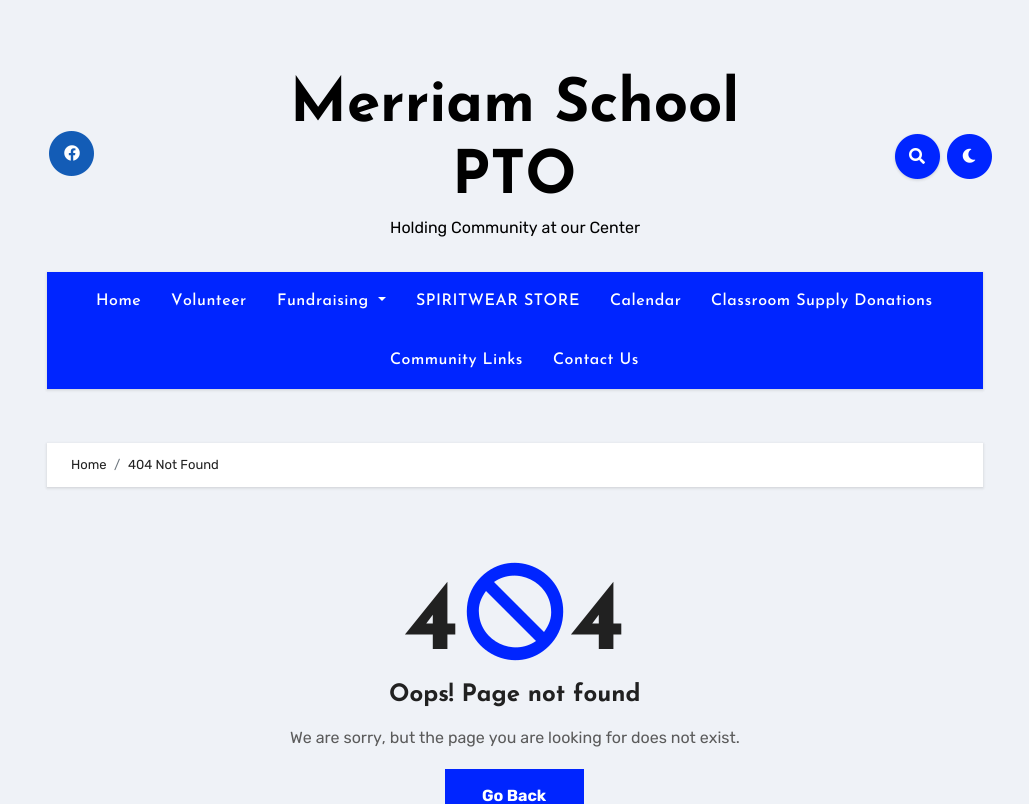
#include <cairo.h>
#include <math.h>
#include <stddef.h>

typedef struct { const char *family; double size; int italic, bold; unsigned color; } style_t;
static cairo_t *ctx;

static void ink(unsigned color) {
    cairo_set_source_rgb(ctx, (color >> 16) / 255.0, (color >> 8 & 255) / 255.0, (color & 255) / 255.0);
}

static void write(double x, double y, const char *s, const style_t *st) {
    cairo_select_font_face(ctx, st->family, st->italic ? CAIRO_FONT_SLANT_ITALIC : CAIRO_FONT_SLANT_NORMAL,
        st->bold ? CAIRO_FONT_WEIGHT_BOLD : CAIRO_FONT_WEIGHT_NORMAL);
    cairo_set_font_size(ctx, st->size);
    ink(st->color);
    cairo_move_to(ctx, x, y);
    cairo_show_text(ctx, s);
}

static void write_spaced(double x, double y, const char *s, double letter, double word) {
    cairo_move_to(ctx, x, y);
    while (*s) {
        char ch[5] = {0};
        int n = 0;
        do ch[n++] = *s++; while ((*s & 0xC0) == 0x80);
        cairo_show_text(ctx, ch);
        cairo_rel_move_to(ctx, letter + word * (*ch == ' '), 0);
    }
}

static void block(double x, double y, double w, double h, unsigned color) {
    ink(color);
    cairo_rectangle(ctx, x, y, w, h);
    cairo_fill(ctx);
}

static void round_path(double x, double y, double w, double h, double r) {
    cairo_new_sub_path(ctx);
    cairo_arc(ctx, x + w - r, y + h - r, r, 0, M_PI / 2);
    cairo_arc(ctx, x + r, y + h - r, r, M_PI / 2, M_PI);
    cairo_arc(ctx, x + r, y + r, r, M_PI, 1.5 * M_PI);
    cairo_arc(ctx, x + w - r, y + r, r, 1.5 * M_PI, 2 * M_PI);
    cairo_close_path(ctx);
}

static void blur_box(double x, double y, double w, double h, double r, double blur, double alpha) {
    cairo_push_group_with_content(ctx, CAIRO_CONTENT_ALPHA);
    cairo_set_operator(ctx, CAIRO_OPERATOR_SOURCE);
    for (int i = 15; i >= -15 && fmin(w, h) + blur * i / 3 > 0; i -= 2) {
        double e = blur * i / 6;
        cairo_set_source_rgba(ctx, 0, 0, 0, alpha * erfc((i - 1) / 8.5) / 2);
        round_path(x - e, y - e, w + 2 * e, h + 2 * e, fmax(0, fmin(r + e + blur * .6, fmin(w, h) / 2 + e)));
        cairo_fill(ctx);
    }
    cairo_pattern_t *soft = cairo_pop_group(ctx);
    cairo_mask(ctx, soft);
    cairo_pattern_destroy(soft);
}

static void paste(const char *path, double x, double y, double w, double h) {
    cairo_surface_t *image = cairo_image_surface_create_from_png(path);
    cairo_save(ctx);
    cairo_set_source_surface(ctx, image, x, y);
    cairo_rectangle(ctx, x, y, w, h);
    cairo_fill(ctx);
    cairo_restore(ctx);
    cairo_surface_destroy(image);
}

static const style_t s1 = {"Josefin Sans", 60, 0, 1, 0x000000};
static const style_t s2 = {"Rubik Light", 16, 0, 0, 0x000000};
static const style_t s3 = {"Rubik Light", 13, 0, 0, 0x212121};
static const style_t s4 = {"Rubik Light", 13, 0, 0, 0x6c757d};
static const style_t s5 = {"Josefin Sans", 100, 0, 1, 0x212121};
static const style_t s6 = {"Josefin Sans", 24, 0, 1, 0x212121};
static const style_t s7 = {"Rubik Light", 16, 0, 0, 0x5b5b5b};
static const style_t s8 = {"Rubik", 16, 0, 1, 0xffffff};

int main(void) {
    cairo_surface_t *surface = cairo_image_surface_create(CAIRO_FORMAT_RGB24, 1029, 804);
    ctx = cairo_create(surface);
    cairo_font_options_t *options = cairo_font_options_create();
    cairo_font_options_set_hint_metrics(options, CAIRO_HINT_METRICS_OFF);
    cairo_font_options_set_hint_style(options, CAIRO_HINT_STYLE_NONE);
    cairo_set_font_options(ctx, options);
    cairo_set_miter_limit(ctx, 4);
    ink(0xeff2f7);
    cairo_paint(ctx);
    ink(0x135cb6);
    cairo_arc(ctx, 71.5, 153.5, 22.5, 0, 2 * M_PI);
    cairo_fill(ctx);
    paste("pic1.png", 64, 145, 16, 16);
    write(290, 121, "Merriam School", &s1);
    write(452, 193, "PTO", &s1);
    write(390, 233, "Holding Community at our Center", &s2);
    ink(0x000000);
    blur_box(895, 135, 45, 45, 22.5, 1.5, 0.15);
    ink(0x0025ff);
    cairo_arc(ctx, 917.5, 156.5, 22.5, 0, 2 * M_PI);
    cairo_fill(ctx);
    paste("pic2.png", 909, 148, 16, 16);
    cairo_arc(ctx, 969.5, 156.5, 22.5, 0, 2 * M_PI);
    cairo_fill(ctx);
    paste("pic3.png", 962, 148, 14, 15);
    ink(0x000000);
    blur_box(47, 273, 936, 117, 0, 1.5, 0.15);
    block(47, 272, 936, 117, 0x0025ff);
    cairo_select_font_face(ctx, "Josefin Sans Medium", CAIRO_FONT_SLANT_NORMAL, CAIRO_FONT_WEIGHT_NORMAL);
    ink(0xffffff);
    write_spaced(96, 305, "Home", 0.5, 0);
    write_spaced(171, 305, "Volunteer", 0.5, 0);
    write_spaced(277, 305, "Fundraising", 0.5, 0);
    cairo_new_path(ctx);
    cairo_move_to(ctx, 378, 297);
    cairo_line_to(ctx, 386, 297);
    cairo_line_to(ctx, 382, 301);
    cairo_close_path(ctx);
    cairo_fill(ctx);
    write_spaced(416, 305, "SPIRITWEAR STORE", 0.5, 0);
    write_spaced(610, 305, "Calendar", 0.5, 0);
    write_spaced(711, 305, "Classroom Supply Donations", 0.5, 0);
    write_spaced(390, 364, "Community Links", 0.5, 0);
    write_spaced(553, 364, "Contact Us", 0.5, 0);
    ink(0x000000);
    blur_box(47, 444, 936, 44, 0, 1.5, 0.15);
    block(47, 443, 936, 44, 0xffffff);
    write(71, 469, "Home", &s3);
    write(114, 469, "/", &s4);
    write(128, 469, "404 Not Found", &s3);
    write(404, 649, "4", &s5);
    ink(0x0025ff);
    cairo_new_path(ctx);
    cairo_move_to(ctx, 481, 577);
    cairo_curve_to(ctx, 513, 545, 567, 571, 563, 616);
    cairo_curve_to(ctx, 562, 628, 557, 638, 549, 646);
    cairo_curve_to(ctx, 517, 678, 463, 652, 467, 607);
    cairo_curve_to(ctx, 468, 595, 473, 585, 481, 577);
    cairo_close_path(ctx);
    cairo_move_to(ctx, 551, 609);
    cairo_curve_to(ctx, 549, 582, 517, 566, 494, 582);
    cairo_line_to(ctx, 544, 632);
    cairo_curve_to(ctx, 549, 625, 552, 618, 551, 609);
    cairo_close_path(ctx);
    cairo_move_to(ctx, 479, 614);
    cairo_curve_to(ctx, 481, 641, 513, 657, 536, 641);
    cairo_line_to(ctx, 486, 591);
    cairo_curve_to(ctx, 481, 598, 478, 605, 479, 614);
    cairo_close_path(ctx);
    cairo_fill(ctx);
    write(570, 649, "4", &s5);
    write(389, 701, "Oops! Page not found", &s6);
    write(290, 743, "We are sorry, but the page you are looking for does not exist.", &s7);
    block(445, 769, 139, 35, 0x0025ff);
    write(482, 801, "Go Back", &s8);
    cairo_surface_write_to_png(surface, "screenshot.png");
    cairo_font_options_destroy(options);
    cairo_destroy(ctx);
    cairo_surface_destroy(surface);
    return 0;
}
